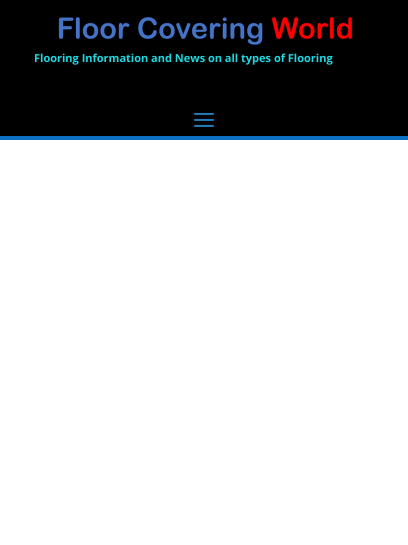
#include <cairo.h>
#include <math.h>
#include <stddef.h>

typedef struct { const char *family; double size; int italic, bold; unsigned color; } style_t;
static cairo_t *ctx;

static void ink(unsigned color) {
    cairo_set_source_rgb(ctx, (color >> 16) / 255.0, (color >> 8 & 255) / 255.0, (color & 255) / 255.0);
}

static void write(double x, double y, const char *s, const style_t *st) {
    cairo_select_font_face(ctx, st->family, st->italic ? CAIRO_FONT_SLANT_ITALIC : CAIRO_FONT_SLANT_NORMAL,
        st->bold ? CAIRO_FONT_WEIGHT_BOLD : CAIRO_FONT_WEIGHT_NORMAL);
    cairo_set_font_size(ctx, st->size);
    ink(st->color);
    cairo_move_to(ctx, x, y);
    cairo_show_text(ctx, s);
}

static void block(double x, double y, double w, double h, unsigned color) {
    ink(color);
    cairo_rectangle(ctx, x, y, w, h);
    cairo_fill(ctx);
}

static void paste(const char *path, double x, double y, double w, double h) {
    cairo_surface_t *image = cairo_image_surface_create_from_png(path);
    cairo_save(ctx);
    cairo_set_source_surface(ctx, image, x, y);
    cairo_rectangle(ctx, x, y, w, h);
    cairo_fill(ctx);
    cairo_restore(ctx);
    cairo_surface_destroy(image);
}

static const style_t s1 = {"Open Sans", 11, 0, 1, 0x1fd7e0};

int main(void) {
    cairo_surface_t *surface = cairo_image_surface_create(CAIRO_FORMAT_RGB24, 408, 545);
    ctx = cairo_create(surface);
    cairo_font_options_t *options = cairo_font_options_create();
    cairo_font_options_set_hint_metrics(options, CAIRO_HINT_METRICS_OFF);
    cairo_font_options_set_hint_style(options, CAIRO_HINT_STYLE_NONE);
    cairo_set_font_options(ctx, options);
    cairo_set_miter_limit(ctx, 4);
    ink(0xffffff);
    cairo_paint(ctx);
    block(0, 0, 408, 136, 0x000000);
    block(0, 136, 408, 4, 0x0c71c3);
    paste("pic1.png", 58, 16, 295, 29);
    write(34, 62, "Flooring Information and News on all types of Flooring", &s1);
    paste("pic2.png", 194, 112, 20, 15);
    cairo_surface_write_to_png(surface, "screenshot.png");
    cairo_font_options_destroy(options);
    cairo_destroy(ctx);
    cairo_surface_destroy(surface);
    return 0;
}
